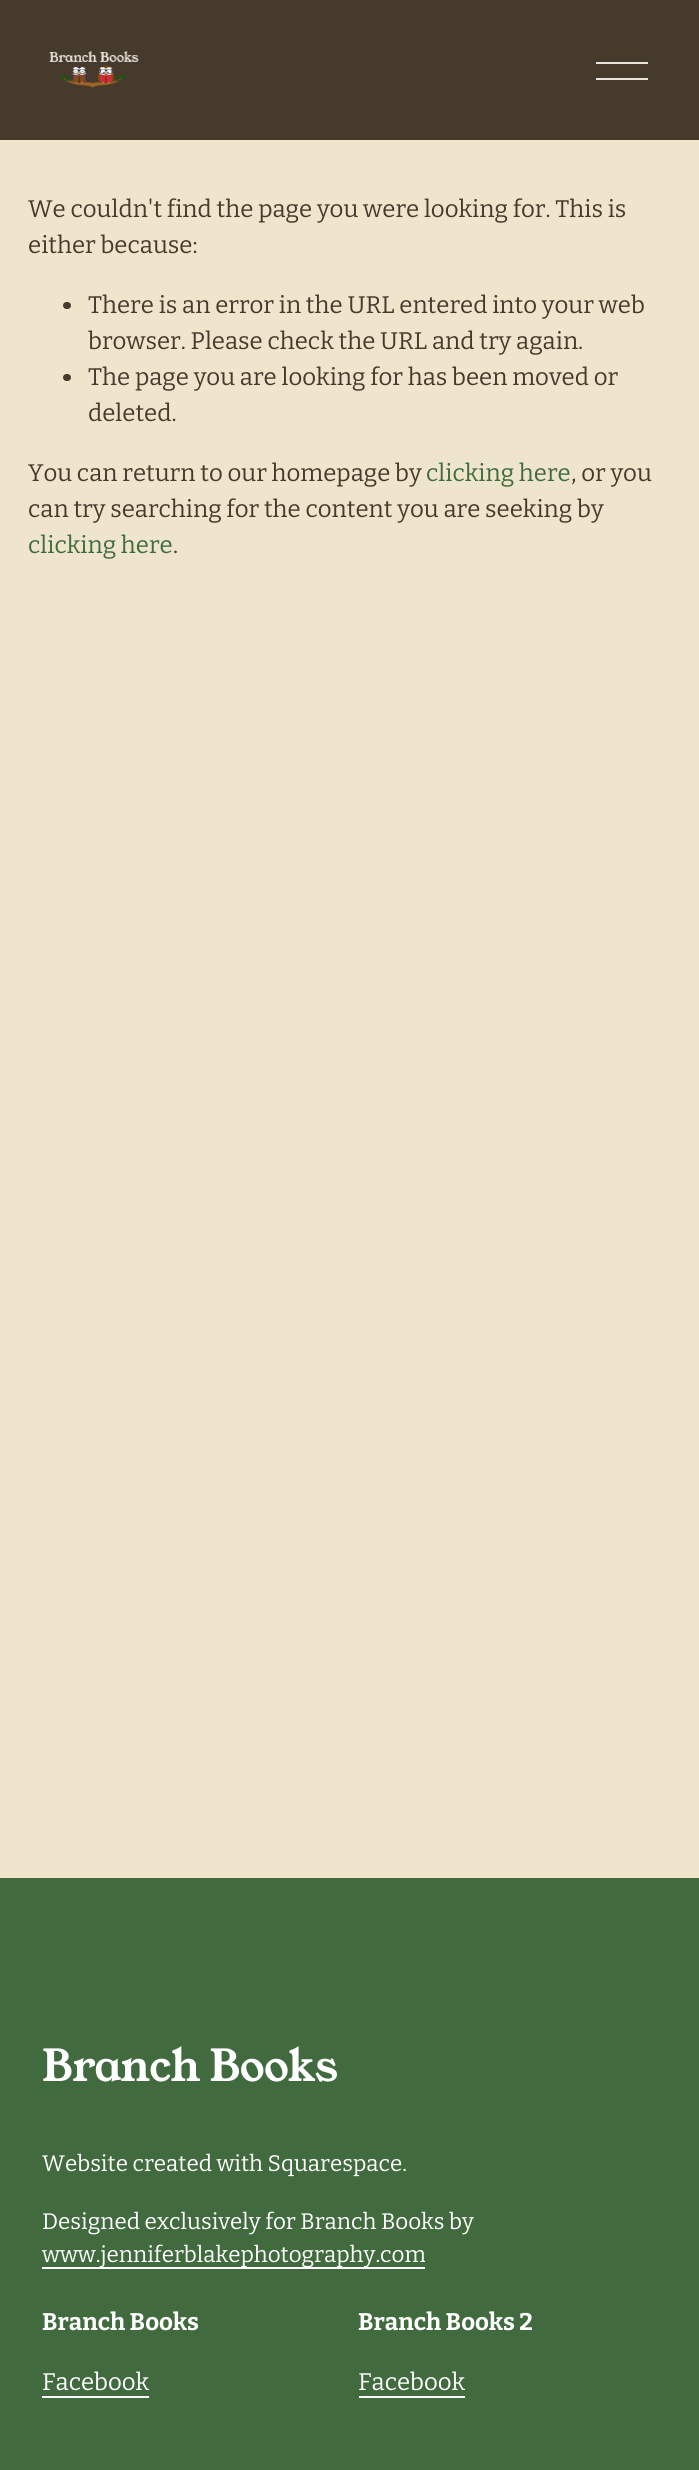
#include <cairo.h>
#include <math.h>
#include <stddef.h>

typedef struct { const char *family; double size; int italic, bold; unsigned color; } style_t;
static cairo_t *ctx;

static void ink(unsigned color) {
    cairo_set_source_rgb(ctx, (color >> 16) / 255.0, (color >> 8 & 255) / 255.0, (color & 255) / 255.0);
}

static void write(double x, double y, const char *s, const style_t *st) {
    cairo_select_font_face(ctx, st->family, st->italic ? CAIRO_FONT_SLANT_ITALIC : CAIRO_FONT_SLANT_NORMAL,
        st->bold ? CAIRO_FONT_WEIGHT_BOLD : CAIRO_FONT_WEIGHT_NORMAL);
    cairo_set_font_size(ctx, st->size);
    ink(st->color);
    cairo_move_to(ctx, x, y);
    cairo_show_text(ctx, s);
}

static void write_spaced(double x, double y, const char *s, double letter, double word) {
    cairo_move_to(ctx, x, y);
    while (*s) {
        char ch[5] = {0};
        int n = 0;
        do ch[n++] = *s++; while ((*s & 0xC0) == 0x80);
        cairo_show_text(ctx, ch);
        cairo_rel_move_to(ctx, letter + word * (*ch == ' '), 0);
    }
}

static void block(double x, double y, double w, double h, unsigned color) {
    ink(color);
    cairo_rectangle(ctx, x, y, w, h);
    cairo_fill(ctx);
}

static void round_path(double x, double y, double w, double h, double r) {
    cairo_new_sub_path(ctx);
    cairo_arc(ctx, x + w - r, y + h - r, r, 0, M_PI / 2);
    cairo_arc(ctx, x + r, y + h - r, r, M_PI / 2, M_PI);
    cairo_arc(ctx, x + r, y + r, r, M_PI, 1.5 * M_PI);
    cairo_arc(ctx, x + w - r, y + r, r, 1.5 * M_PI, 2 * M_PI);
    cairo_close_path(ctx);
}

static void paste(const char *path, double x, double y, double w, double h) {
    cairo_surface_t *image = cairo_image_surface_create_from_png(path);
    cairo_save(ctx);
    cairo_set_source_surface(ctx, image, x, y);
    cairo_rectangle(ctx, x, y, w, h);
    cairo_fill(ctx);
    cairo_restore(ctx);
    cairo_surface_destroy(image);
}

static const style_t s1 = {"Bitter", 24, 0, 0, 0x463a2c};
static const style_t s2 = {"Bitter", 24, 0, 0, 0x416b3f};
static const style_t s3 = {"Bitter", 22.4, 0, 0, 0xffffff};
static const style_t s4 = {"Bitter", 24, 0, 1, 0xffffff};
static const style_t s5 = {"Bitter", 24, 0, 0, 0xffffff};

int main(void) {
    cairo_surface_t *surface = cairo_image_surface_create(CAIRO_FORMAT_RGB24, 699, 2470);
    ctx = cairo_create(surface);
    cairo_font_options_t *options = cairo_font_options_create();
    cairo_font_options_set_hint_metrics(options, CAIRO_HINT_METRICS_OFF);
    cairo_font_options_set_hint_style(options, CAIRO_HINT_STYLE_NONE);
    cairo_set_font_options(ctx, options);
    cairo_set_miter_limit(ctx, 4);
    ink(0xeee5cc);
    cairo_paint(ctx);
    block(0, 0, 699, 140, 0x463a2c);
    paste("pic1.png", 49, 51, 90, 37);
    block(596, 62, 52, 2, 0xeae6dd);
    block(596, 78, 52, 2, 0xeae6dd);
    write(28, 217, "We couldn't find the page you were looking for. This is", &s1);
    write(28, 253, "either because:", &s1);
    round_path(63, 302, 8, 7, 3.5);
    cairo_fill(ctx);
    write(88, 313, "There is an error in the URL entered into your web", &s1);
    write(88, 349, "browser. Please check the URL and try again.", &s1);
    round_path(63, 374, 8, 7, 3.5);
    cairo_fill(ctx);
    write(88, 385, "The page you are looking for has been moved or", &s1);
    write(88, 421, "deleted.", &s1);
    write(28, 481, "You can return to our homepage by", &s1);
    write(426, 481, "clicking here", &s2);
    write(571, 481, ", or you", &s1);
    write(28, 517, "can try searching for the content you are seeking by", &s1);
    write(28, 553, "clicking here", &s2);
    write(173, 553, ".", &s1);
    block(0, 1878, 699, 592, 0x416b3f);
    cairo_select_font_face(ctx, "Young Serif", CAIRO_FONT_SLANT_NORMAL, CAIRO_FONT_WEIGHT_NORMAL);
    cairo_set_font_size(ctx, 43.5);
    ink(0xffffff);
    write_spaced(42, 2081, "Branch Books", -0.9, 0);
    write(42, 2171, "Website created with Squarespace.", &s3);
    write(42, 2229, "Designed exclusively for Branch Books by", &s3);
    block(42, 2267, 383, 2, 0xffffff);
    write(42, 2262, "www.jenniferblakephotography.com", &s3);
    write(42, 2330, "Branch Books", &s4);
    write(42, 2390, "Facebook", &s5);
    block(42, 2396, 107, 2, 0xffffff);
    write(358, 2330, "Branch Books 2", &s4);
    write(358, 2390, "Facebook", &s5);
    block(359, 2396, 106, 2, 0xffffff);
    cairo_surface_write_to_png(surface, "screenshot.png");
    cairo_font_options_destroy(options);
    cairo_destroy(ctx);
    cairo_surface_destroy(surface);
    return 0;
}
